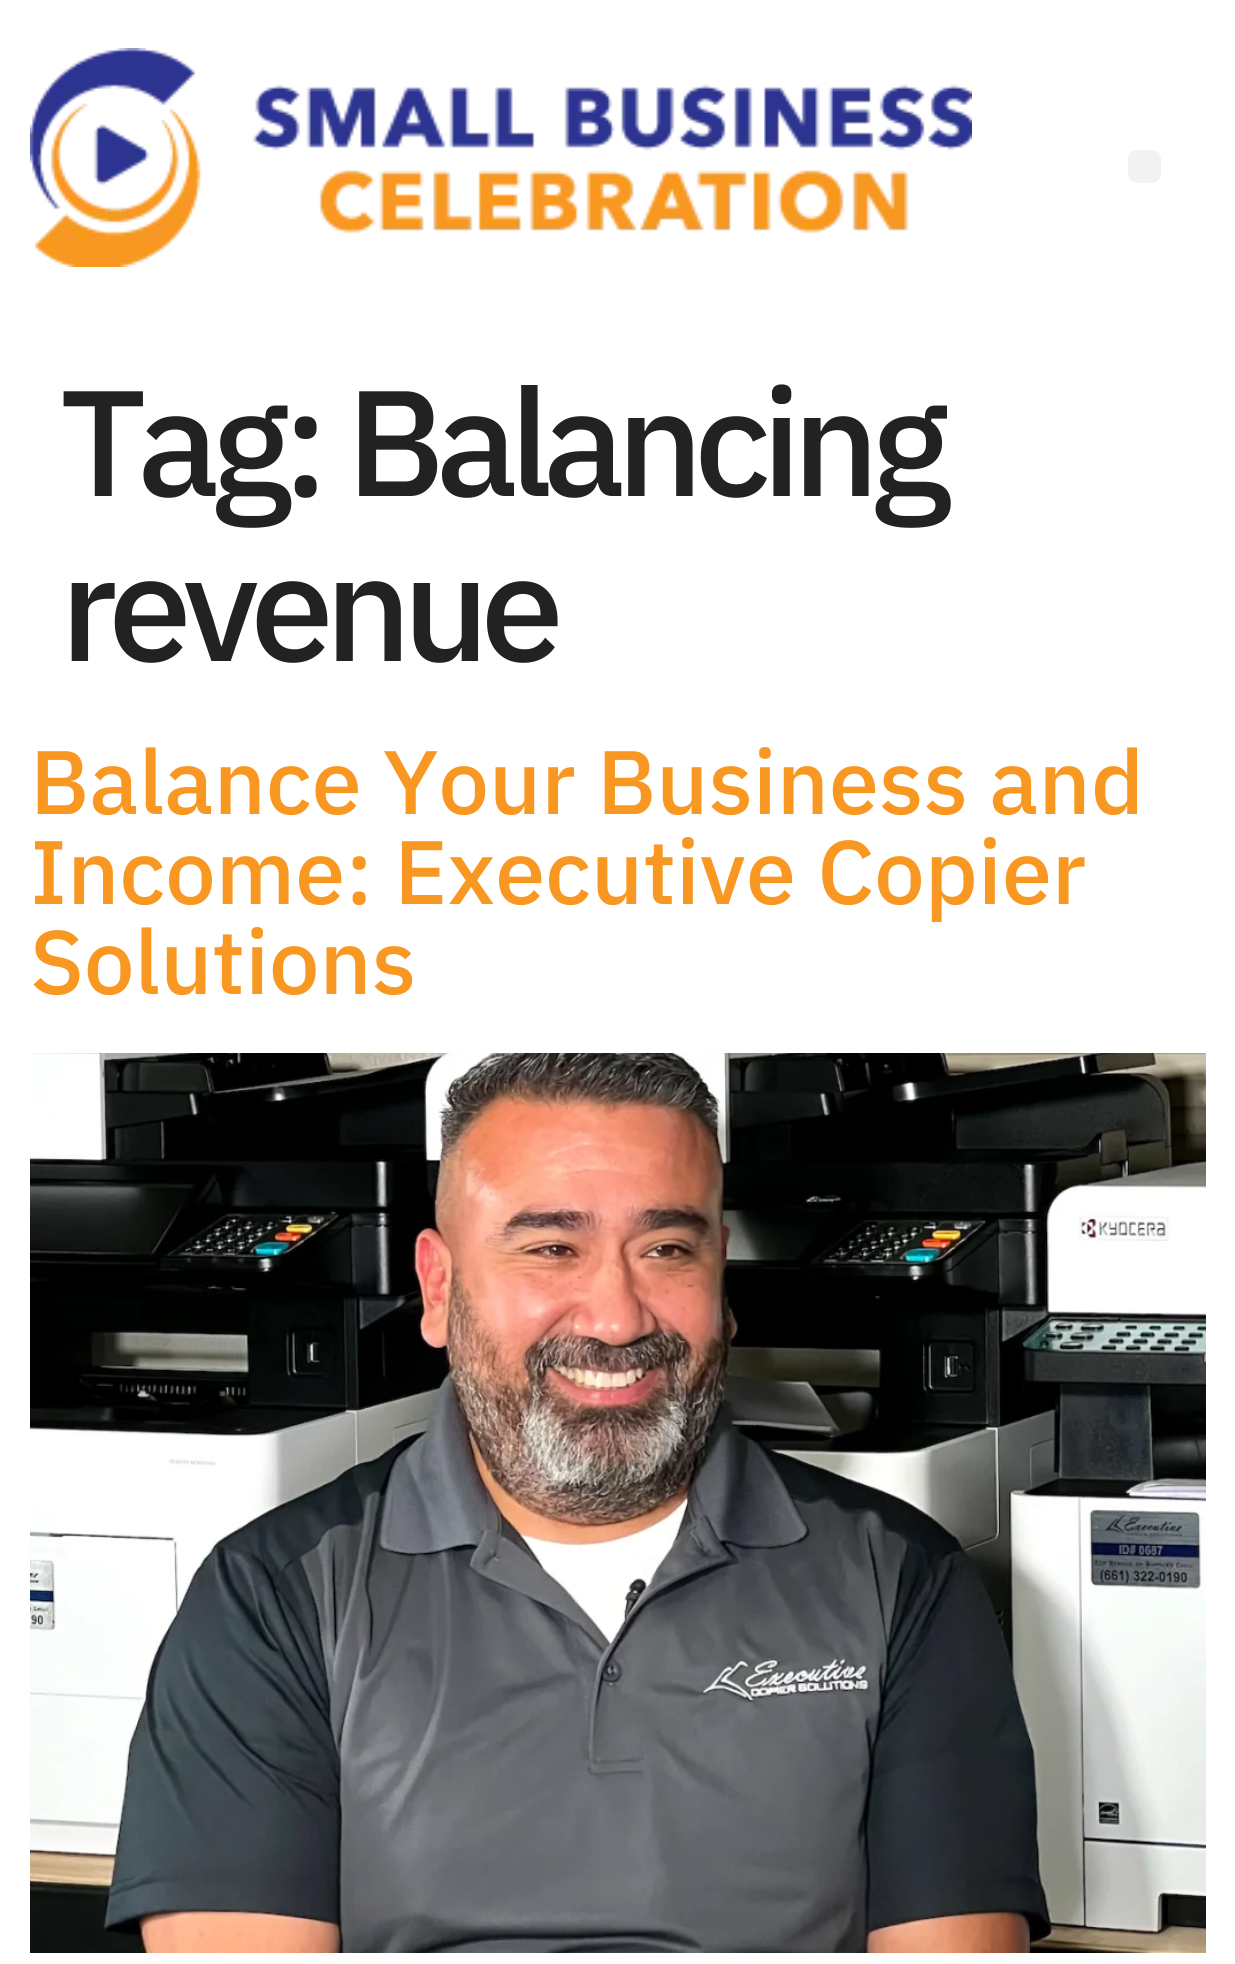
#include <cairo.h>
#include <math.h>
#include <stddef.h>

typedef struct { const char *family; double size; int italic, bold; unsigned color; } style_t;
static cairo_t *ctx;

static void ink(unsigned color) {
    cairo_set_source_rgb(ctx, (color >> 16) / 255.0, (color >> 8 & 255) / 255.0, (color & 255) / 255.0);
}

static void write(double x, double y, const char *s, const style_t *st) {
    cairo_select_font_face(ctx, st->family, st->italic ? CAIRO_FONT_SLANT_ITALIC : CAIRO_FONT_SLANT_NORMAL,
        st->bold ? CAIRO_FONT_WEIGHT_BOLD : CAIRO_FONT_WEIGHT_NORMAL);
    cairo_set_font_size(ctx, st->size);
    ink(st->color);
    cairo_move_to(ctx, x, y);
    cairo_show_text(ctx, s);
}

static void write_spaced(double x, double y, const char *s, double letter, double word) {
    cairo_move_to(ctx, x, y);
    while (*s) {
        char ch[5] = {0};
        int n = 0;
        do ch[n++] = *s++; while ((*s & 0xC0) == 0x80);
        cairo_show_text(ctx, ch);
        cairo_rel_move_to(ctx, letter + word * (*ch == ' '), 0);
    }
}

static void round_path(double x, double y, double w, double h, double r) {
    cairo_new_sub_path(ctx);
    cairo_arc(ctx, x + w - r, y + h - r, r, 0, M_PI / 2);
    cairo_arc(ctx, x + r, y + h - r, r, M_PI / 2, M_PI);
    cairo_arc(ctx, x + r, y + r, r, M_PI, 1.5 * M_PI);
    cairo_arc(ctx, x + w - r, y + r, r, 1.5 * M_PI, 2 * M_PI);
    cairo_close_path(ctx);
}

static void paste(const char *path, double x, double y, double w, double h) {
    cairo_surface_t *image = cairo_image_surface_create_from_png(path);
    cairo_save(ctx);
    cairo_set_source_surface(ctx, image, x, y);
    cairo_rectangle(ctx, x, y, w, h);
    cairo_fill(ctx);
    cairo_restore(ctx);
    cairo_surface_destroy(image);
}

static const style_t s1 = {"IBM Plex Sans Medium", 90, 0, 0, 0xf89721};

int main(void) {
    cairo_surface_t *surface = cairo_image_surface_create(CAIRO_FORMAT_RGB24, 1235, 1964);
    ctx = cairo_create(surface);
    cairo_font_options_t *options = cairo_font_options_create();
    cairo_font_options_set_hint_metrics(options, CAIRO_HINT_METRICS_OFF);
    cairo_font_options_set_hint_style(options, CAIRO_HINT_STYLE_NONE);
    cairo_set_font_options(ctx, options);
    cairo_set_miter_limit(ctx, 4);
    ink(0xffffff);
    cairo_paint(ctx);
    paste("pic1.png", 30, 48, 942, 219);
    ink(0xf2f2f2);
    round_path(1128, 150, 33, 33, 9);
    cairo_fill(ctx);
    cairo_select_font_face(ctx, "IBM Plex Sans Medium", CAIRO_FONT_SLANT_NORMAL, CAIRO_FONT_WEIGHT_NORMAL);
    cairo_set_font_size(ctx, 150);
    ink(0x222222);
    write_spaced(60, 496, "Tag: Balancing", -9, 0);
    write_spaced(60, 661, "revenue", -9, 0);
    write(30, 814, "Balance Your Business and", &s1);
    write(30, 904, "Income: Executive Copier", &s1);
    write(30, 994, "Solutions", &s1);
    paste("pic2.png", 30, 1053, 1176, 900);
    cairo_surface_write_to_png(surface, "screenshot.png");
    cairo_font_options_destroy(options);
    cairo_destroy(ctx);
    cairo_surface_destroy(surface);
    return 0;
}
